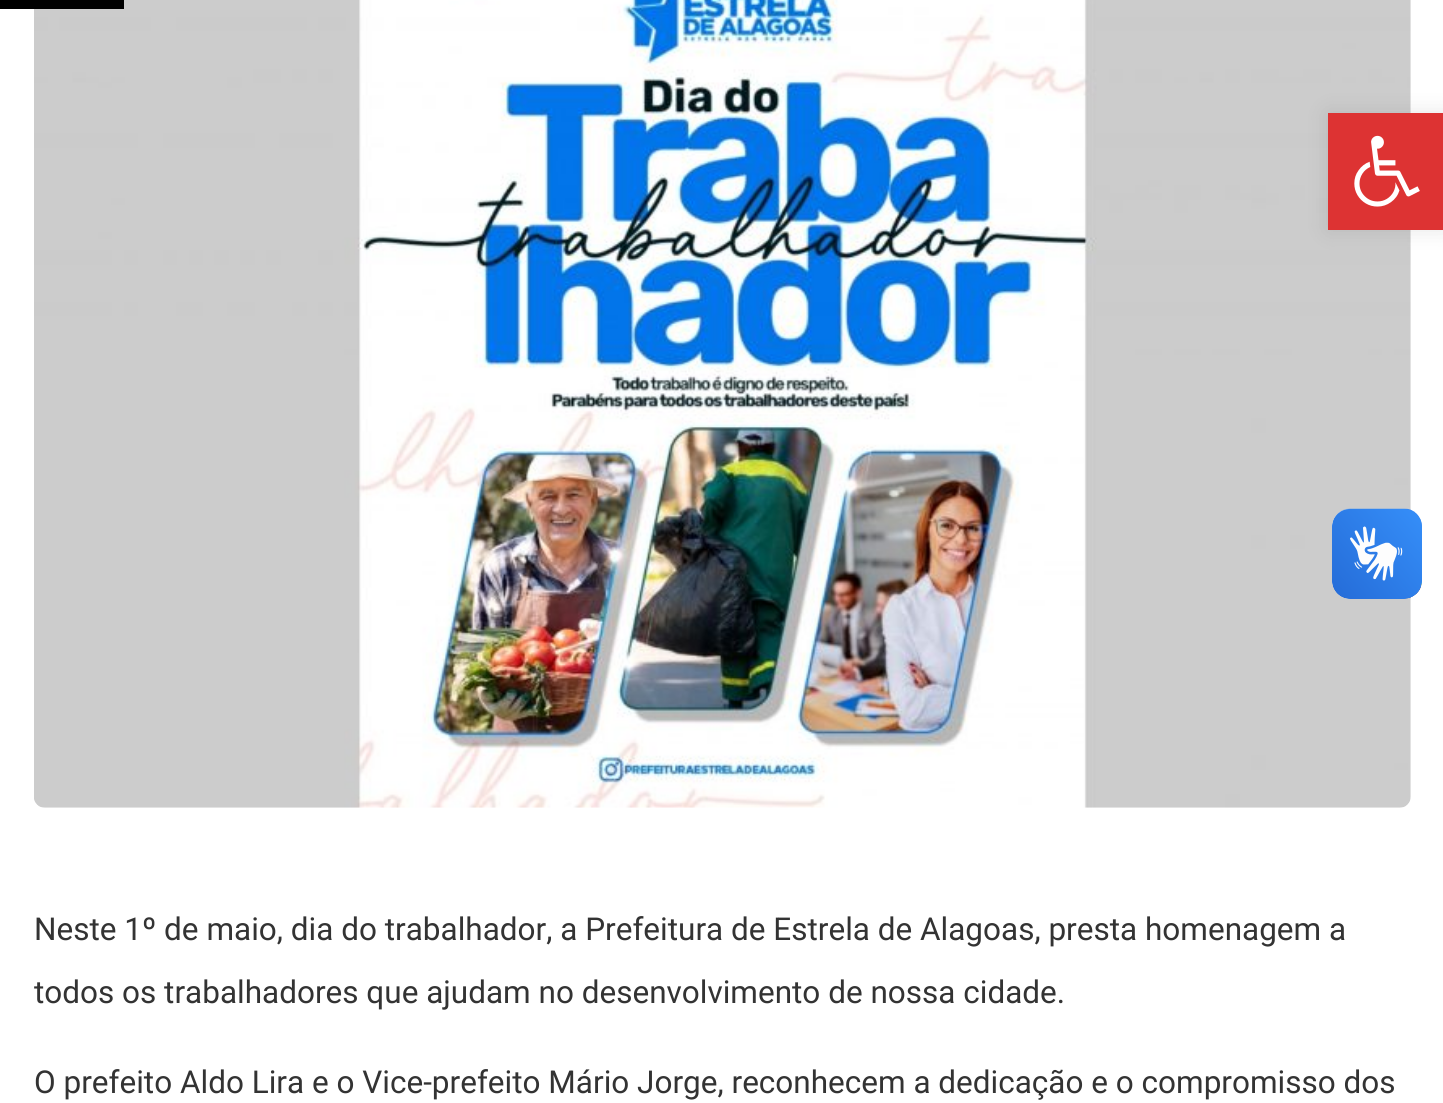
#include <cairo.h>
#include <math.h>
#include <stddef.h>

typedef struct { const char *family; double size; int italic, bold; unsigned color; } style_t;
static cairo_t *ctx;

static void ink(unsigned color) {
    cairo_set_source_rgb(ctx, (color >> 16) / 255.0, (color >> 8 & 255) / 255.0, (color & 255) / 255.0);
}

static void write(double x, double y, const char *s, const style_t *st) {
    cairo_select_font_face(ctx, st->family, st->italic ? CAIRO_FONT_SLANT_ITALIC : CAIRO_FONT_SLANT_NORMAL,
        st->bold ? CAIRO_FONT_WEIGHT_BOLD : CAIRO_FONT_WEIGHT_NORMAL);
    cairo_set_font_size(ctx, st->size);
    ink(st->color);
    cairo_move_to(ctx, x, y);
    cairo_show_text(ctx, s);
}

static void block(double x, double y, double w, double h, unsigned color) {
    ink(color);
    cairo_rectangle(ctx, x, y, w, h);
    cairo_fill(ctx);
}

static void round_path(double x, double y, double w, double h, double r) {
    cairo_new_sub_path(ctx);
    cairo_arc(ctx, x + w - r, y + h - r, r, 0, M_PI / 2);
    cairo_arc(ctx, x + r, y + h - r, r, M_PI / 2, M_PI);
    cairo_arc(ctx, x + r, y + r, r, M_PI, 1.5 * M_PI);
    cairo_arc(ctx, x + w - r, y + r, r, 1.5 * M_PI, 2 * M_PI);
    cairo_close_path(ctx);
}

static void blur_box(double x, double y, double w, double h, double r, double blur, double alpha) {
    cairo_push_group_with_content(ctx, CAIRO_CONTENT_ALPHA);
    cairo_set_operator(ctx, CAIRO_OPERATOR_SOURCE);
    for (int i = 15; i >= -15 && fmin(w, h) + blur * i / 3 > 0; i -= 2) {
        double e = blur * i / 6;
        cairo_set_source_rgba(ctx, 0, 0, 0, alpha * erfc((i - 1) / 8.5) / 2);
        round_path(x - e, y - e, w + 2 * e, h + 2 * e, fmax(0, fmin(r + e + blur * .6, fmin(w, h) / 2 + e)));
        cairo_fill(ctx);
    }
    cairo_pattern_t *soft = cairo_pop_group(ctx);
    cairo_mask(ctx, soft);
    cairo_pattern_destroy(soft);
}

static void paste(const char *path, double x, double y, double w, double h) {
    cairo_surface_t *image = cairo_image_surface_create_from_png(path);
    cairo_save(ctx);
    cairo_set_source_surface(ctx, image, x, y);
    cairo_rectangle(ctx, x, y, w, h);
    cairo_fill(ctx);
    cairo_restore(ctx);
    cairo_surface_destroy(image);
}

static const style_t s1 = {"Roboto", 31.5, 0, 0, 0x333333};

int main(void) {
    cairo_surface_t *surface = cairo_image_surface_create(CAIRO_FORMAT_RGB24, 1443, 1103);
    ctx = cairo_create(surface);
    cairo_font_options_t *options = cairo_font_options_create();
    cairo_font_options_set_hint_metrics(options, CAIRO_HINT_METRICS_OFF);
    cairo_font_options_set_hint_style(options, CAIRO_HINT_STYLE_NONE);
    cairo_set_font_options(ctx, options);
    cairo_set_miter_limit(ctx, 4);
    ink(0xffffff);
    cairo_paint(ctx);
    paste("pic4.png", 34, 0, 1377, 808);
    block(0, 0, 124, 9, 0x000000);
    ink(0x000000);
    blur_box(1328, 113, 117, 117, 0, 11, 0.1);
    block(1328, 113, 115, 117, 0xdd3333);
    paste("pic1.png", 1354, 135, 66, 72);
    paste("pic2.png", 1332, 508, 90, 91);
    paste("pic3.png", 1332, 509, 90, 90);
    write(34, 940, "Neste 1º de maio, dia do trabalhador, a Prefeitura de Estrela de Alagoas, presta homenagem a", &s1);
    write(34, 1003, "todos os trabalhadores que ajudam no desenvolvimento de nossa cidade.", &s1);
    write(34, 1093, "O prefeito Aldo Lira e o Vice-prefeito Mário Jorge, reconhecem a dedicação e o compromisso dos", &s1);
    cairo_surface_write_to_png(surface, "screenshot.png");
    cairo_font_options_destroy(options);
    cairo_destroy(ctx);
    cairo_surface_destroy(surface);
    return 0;
}
